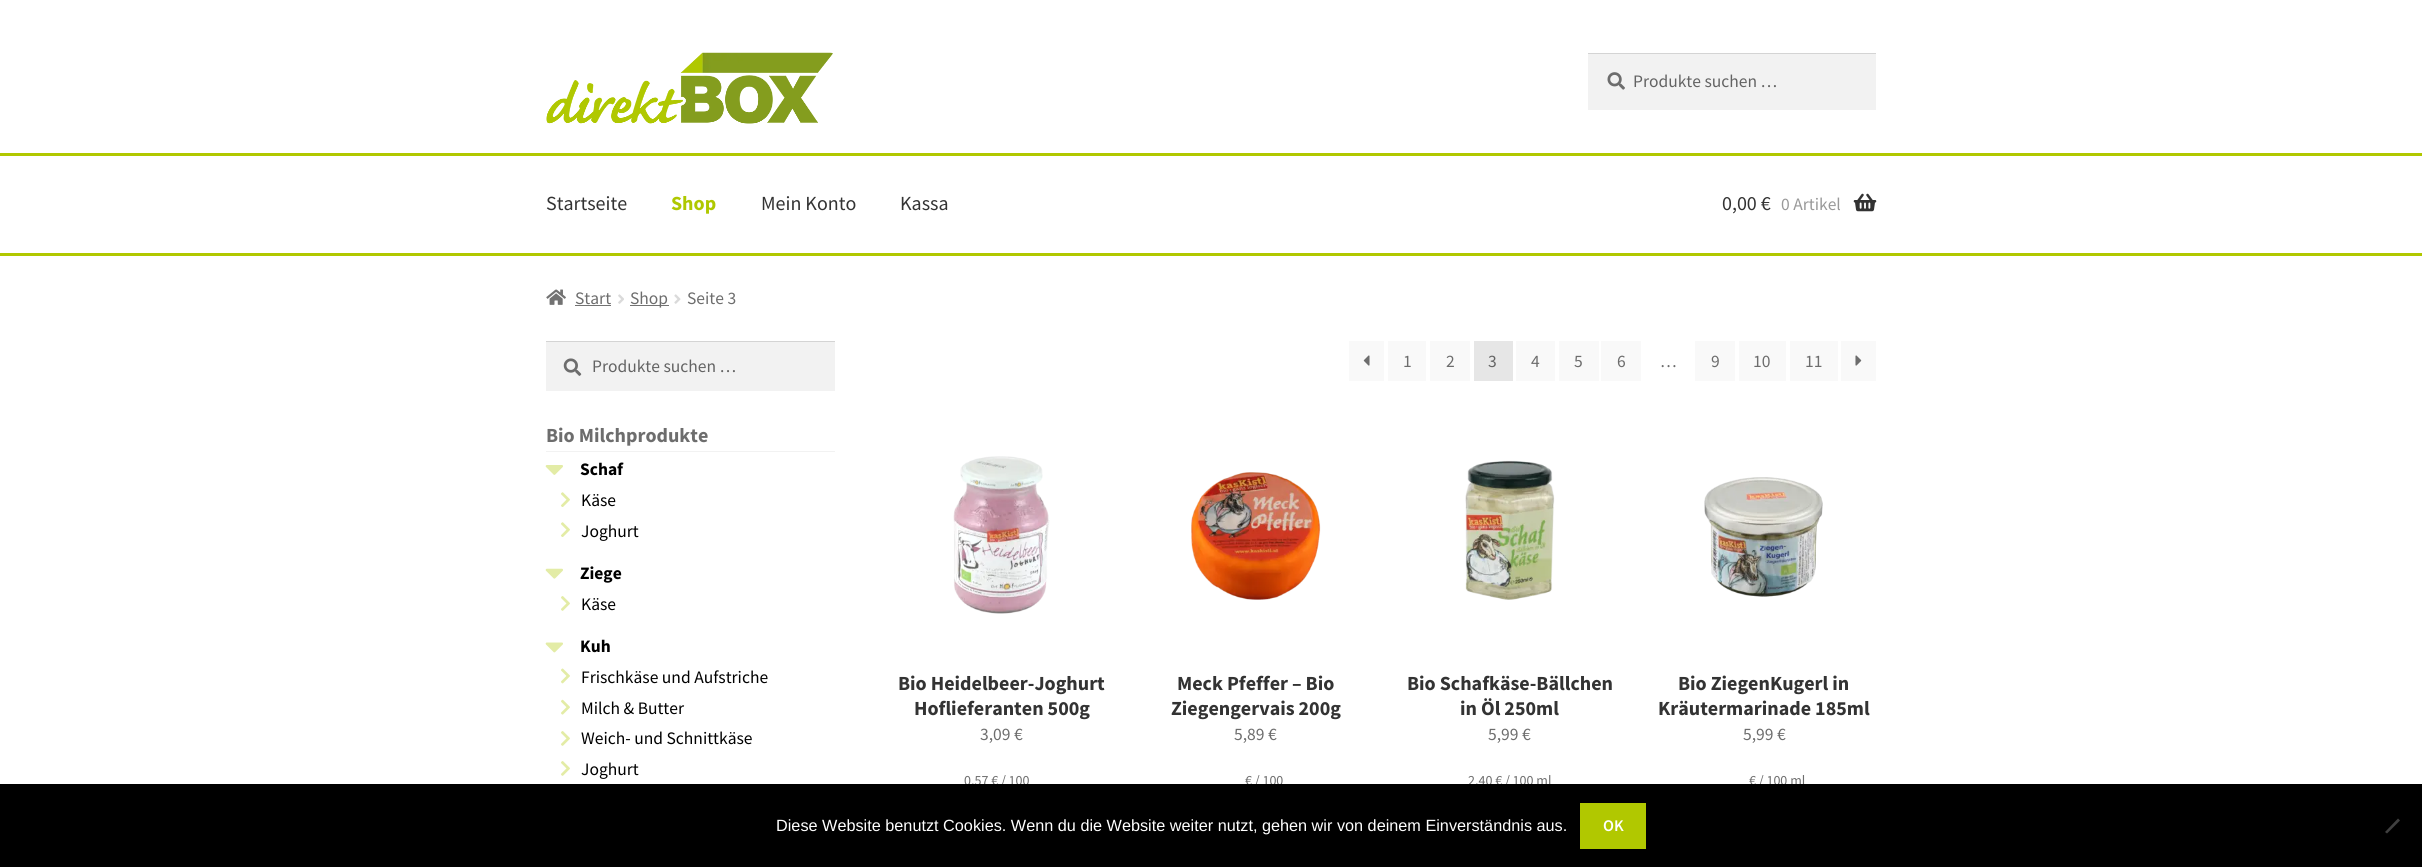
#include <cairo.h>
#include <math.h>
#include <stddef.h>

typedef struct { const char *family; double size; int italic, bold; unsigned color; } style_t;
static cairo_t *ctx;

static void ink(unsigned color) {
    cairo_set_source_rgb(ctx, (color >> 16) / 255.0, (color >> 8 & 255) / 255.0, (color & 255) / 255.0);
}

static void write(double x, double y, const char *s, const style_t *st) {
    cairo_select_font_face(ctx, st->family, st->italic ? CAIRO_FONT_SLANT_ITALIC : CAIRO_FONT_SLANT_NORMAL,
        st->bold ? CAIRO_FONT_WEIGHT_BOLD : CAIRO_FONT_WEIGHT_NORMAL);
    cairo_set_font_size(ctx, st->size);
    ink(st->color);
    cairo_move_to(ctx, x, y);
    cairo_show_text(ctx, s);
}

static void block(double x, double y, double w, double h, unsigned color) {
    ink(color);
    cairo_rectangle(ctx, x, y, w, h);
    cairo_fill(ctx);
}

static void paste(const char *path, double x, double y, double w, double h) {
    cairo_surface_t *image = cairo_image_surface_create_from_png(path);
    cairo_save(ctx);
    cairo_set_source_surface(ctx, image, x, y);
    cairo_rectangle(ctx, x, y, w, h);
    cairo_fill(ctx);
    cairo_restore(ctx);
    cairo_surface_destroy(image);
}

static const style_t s1 = {"Source Sans Pro", 17.5, 0, 0, 0x636363};
static const style_t s2 = {"Source Sans Pro", 20, 0, 0, 0x333333};
static const style_t s3 = {"Source Sans Pro", 20, 0, 1, 0xafc800};
static const style_t s4 = {"Source Sans Pro", 17.5, 0, 0, 0x999999};
static const style_t s5 = {"Source Sans Pro", 17.5, 0, 0, 0x6d6d6d};
static const style_t s6 = {"Source Sans Pro", 20, 0, 1, 0x6d6d6d};
static const style_t s7 = {"Source Sans Pro", 17.5, 0, 1, 0x000000};
static const style_t s8 = {"Source Sans Pro", 17.5, 0, 0, 0x000000};
static const style_t s9 = {"Source Sans Pro", 20, 0, 1, 0x333333};
static const style_t s10 = {"Source Sans Pro", 14, 0, 0, 0x6d6d6d};
static const style_t s11 = {"Liberation Sans", 16.25, 0, 0, 0xffffff};
static const style_t s12 = {"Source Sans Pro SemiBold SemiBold", 16.25, 0, 0, 0xffffff};

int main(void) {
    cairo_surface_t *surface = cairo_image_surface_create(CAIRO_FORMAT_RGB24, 2422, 867);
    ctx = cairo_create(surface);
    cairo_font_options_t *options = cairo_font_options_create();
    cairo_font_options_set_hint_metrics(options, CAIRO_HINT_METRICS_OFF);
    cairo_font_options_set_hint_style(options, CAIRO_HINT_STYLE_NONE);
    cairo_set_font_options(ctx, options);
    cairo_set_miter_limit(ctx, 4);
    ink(0xffffff);
    cairo_paint(ctx);
    paste("pic1.png", 546, 52, 287, 72);
    block(1588, 54, 288, 56, 0xf2f2f2);
    paste("pic2.png", 1607, 72, 18, 18);
    block(1588, 53, 288, 1, 0xd4d4d4);
    write(1633, 87, "Produkte suchen …", &s1);
    block(0, 153, 2422, 3, 0xb1c800);
    block(0, 253, 2422, 3, 0xb1c800);
    write(546, 210, "Startseite", &s2);
    write(671, 210, "Shop", &s3);
    write(761, 210, "Mein Konto", &s2);
    write(900, 210, "Kassa", &s2);
    write(1722, 210, "0,00 €", &s2);
    write(1781, 210, "0 Artikel", &s4);
    paste("pic3.png", 1853, 193, 24, 19);
    paste("pic4.png", 546, 289, 20, 16);
    write(575, 304, "Start", &s5);
    block(575, 305, 36, 1, 0x727272);
    paste("pic5.png", 618, 294, 6, 10);
    block(630, 305, 39, 1, 0x727272);
    write(630, 304, "Shop", &s5);
    paste("pic6.png", 674, 294, 7, 10);
    write(687, 304, "Seite 3", &s5);
    block(546, 342, 289, 49, 0xf2f2f2);
    paste("pic7.png", 563, 358, 19, 18);
    block(546, 341, 289, 1, 0xd4d4d4);
    write(592, 372, "Produkte suchen …", &s1);
    block(546, 451, 289, 1, 0xf2f2f2);
    write(546, 442, "Bio Milchprodukte", &s6);
    paste("pic8.png", 545, 465, 18, 10);
    write(580, 475, "Schaf", &s7);
    paste("pic9.png", 561, 492, 9, 15);
    write(581, 506, "Käse", &s8);
    paste("pic9.png", 561, 522, 9, 15);
    write(581, 537, "Joghurt", &s8);
    paste("pic10.png", 545, 568, 18, 11);
    write(580, 579, "Ziege", &s7);
    paste("pic11.png", 561, 596, 9, 15);
    write(581, 610, "Käse", &s8);
    paste("pic12.png", 545, 642, 18, 11);
    write(580, 652, "Kuh", &s7);
    paste("pic13.png", 561, 668, 9, 16);
    write(581, 683, "Frischkäse und Aufstriche", &s8);
    paste("pic14.png", 561, 699, 9, 16);
    write(581, 714, "Milch & Butter", &s8);
    paste("pic11.png", 561, 731, 9, 15);
    write(581, 744, "Weich- und Schnittkäse", &s8);
    paste("pic11.png", 561, 761, 9, 15);
    write(581, 775, "Joghurt", &s8);
    block(1349, 341, 35, 40, 0xf9f9f9);
    paste("pic15.png", 1363, 355, 7, 11);
    block(1388, 341, 38, 40, 0xf9f9f9);
    write(1403, 367, "1", &s5);
    block(1430, 341, 40, 40, 0xf9f9f9);
    write(1446, 367, "2", &s5);
    block(1474, 341, 39, 40, 0xe6e6e6);
    write(1488, 367, "3", &s1);
    block(1516, 341, 39, 40, 0xf9f9f9);
    write(1531, 367, "4", &s5);
    block(1559, 341, 40, 40, 0xf9f9f9);
    write(1574, 367, "5", &s5);
    block(1601, 341, 40, 40, 0xf9f9f9);
    write(1617, 367, "6", &s5);
    write(1660, 367, "…", &s5);
    block(1695, 341, 40, 40, 0xf9f9f9);
    write(1711, 367, "9", &s5);
    block(1739, 341, 47, 40, 0xf9f9f9);
    write(1753, 367, "10", &s5);
    block(1790, 341, 48, 40, 0xf9f9f9);
    write(1805, 367, "11", &s5);
    block(1841, 341, 35, 40, 0xf9f9f9);
    paste("pic16.png", 1855, 355, 7, 11);
    paste("pic17.png", 953, 456, 97, 158);
    write(898, 690, "Bio Heidelbeer-Joghurt", &s9);
    write(914, 715, "Hoflieferanten 500g", &s9);
    write(980, 740, "3,09 €", &s5);
    write(964, 785, "0,57 € / 100", &s10);
    paste("pic18.png", 1191, 472, 130, 128);
    write(1177, 690, "Meck Pfeffer – Bio", &s9);
    write(1171, 715, "Ziegengervais 200g", &s9);
    write(1234, 740, "5,89 €", &s5);
    write(1245, 785, "€ / 100", &s10);
    paste("pic19.png", 1465, 460, 90, 140);
    write(1407, 690, "Bio Schafkäse-Bällchen", &s9);
    write(1460, 715, "in Öl 250ml", &s9);
    write(1488, 740, "5,99 €", &s5);
    write(1468, 785, "2,40 € / 100 ml", &s10);
    paste("pic20.png", 1704, 477, 119, 120);
    write(1678, 690, "Bio ZiegenKugerl in", &s9);
    write(1658, 715, "Kräutermarinade 185ml", &s9);
    write(1743, 740, "5,99 €", &s5);
    write(1749, 785, "€ / 100 ml", &s10);
    block(0, 784, 2422, 83, 0x000000);
    write(776, 831, "Diese Website benutzt Cookies. Wenn du die Website weiter nutzt, gehen wir von deinem Einverständnis aus.", &s11);
    block(1580, 803, 66, 46, 0xb1c800);
    write(1603, 831, "OK", &s12);
    ink(0x404040);
    cairo_new_path(ctx);
    cairo_move_to(ctx, 2398, 818.5);
    cairo_line_to(ctx, 2400, 820.5);
    cairo_line_to(ctx, 2387, 833.5);
    cairo_line_to(ctx, 2385, 832);
    cairo_close_path(ctx);
    cairo_fill(ctx);
    cairo_surface_write_to_png(surface, "screenshot.png");
    cairo_font_options_destroy(options);
    cairo_destroy(ctx);
    cairo_surface_destroy(surface);
    return 0;
}
